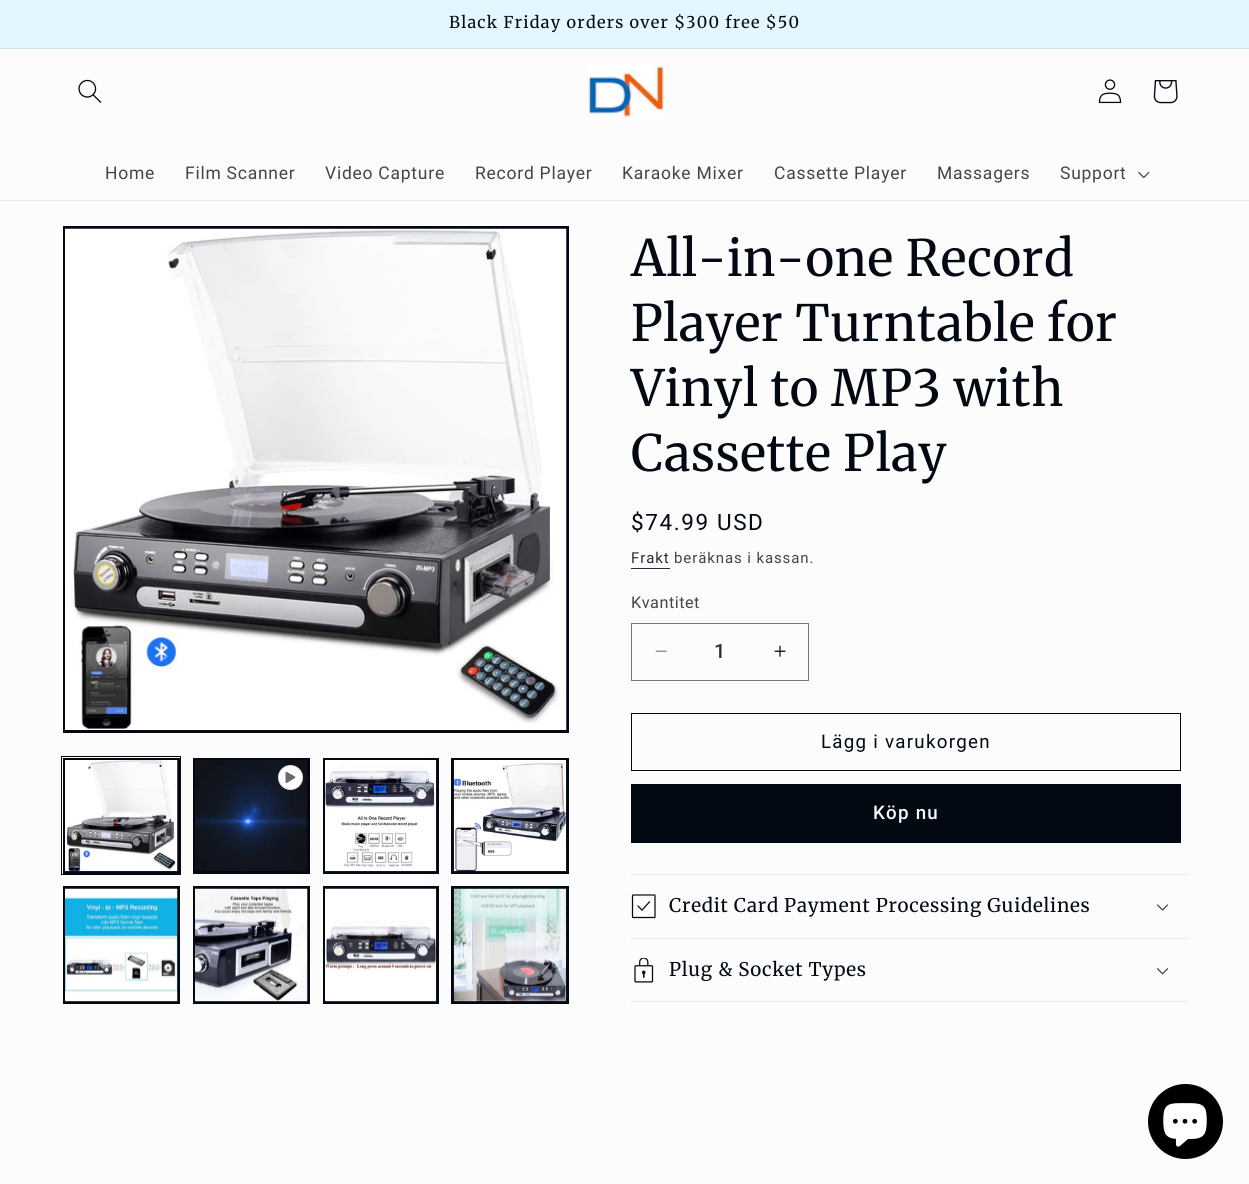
#include <cairo.h>
#include <math.h>
#include <stddef.h>

typedef struct { const char *family; double size; int italic, bold; unsigned color; } style_t;
static cairo_t *ctx;

static void ink(unsigned color) {
    cairo_set_source_rgb(ctx, (color >> 16) / 255.0, (color >> 8 & 255) / 255.0, (color & 255) / 255.0);
}

static void write(double x, double y, const char *s, const style_t *st) {
    cairo_select_font_face(ctx, st->family, st->italic ? CAIRO_FONT_SLANT_ITALIC : CAIRO_FONT_SLANT_NORMAL,
        st->bold ? CAIRO_FONT_WEIGHT_BOLD : CAIRO_FONT_WEIGHT_NORMAL);
    cairo_set_font_size(ctx, st->size);
    ink(st->color);
    cairo_move_to(ctx, x, y);
    cairo_show_text(ctx, s);
}

static void write_spaced(double x, double y, const char *s, double letter, double word) {
    cairo_move_to(ctx, x, y);
    while (*s) {
        char ch[5] = {0};
        int n = 0;
        do ch[n++] = *s++; while ((*s & 0xC0) == 0x80);
        cairo_show_text(ctx, ch);
        cairo_rel_move_to(ctx, letter + word * (*ch == ' '), 0);
    }
}

static void block(double x, double y, double w, double h, unsigned color) {
    ink(color);
    cairo_rectangle(ctx, x, y, w, h);
    cairo_fill(ctx);
}

static void paste(const char *path, double x, double y, double w, double h) {
    cairo_surface_t *image = cairo_image_surface_create_from_png(path);
    cairo_save(ctx);
    cairo_set_source_surface(ctx, image, x, y);
    cairo_rectangle(ctx, x, y, w, h);
    cairo_fill(ctx);
    cairo_restore(ctx);
    cairo_surface_destroy(image);
}

static const style_t s1 = {"Roboto Medium", 20, 0, 0, 0x282d35};

int main(void) {
    cairo_surface_t *surface = cairo_image_surface_create(CAIRO_FORMAT_RGB24, 1249, 1184);
    ctx = cairo_create(surface);
    cairo_font_options_t *options = cairo_font_options_create();
    cairo_font_options_set_hint_metrics(options, CAIRO_HINT_METRICS_OFF);
    cairo_font_options_set_hint_style(options, CAIRO_HINT_STYLE_NONE);
    cairo_set_font_options(ctx, options);
    cairo_set_miter_limit(ctx, 4);
    ink(0xfcfcfc);
    cairo_paint(ctx);
    block(0, 0, 1249, 48, 0xe4f6ff);
    block(0, 48, 1249, 1, 0xd2e3ec);
    cairo_select_font_face(ctx, "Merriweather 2", CAIRO_FONT_SLANT_NORMAL, CAIRO_FONT_WEIGHT_NORMAL);
    cairo_set_font_size(ctx, 16.25);
    ink(0x020912);
    write_spaced(449, 28, "Black Friday orders over $300 free $50", 1.25, 0);
    block(0, 200, 1249, 1, 0xe8e9e9);
    paste("pic1.png", 78, 79, 24, 24);
    paste("pic2.png", 588, 64, 76, 55);
    paste("pic3.png", 1098, 79, 24, 25);
    paste("pic4.png", 1153, 80, 25, 24);
    cairo_select_font_face(ctx, "Roboto", CAIRO_FONT_SLANT_NORMAL, CAIRO_FONT_WEIGHT_NORMAL);
    cairo_set_font_size(ctx, 17.5);
    ink(0x41464d);
    write_spaced(105, 179, "Home", 0.75, 0);
    write_spaced(185, 179, "Film Scanner", 0.75, 0);
    write_spaced(325, 179, "Video Capture", 0.75, 0);
    write_spaced(475, 179, "Record Player", 0.75, 0);
    write_spaced(622, 179, "Karaoke Mixer", 0.75, 0);
    write_spaced(774, 179, "Cassette Player", 0.75, 0);
    write_spaced(937, 179, "Massagers", 0.75, 0);
    write_spaced(1060, 179, "Support", 0.75, 0);
    paste("pic5.png", 1138, 171, 12, 8);
    cairo_rectangle(ctx, 64.5, 227.5, 503, 504);
    ink(0x020912);
    cairo_set_line_width(ctx, 3);
    cairo_stroke(ctx);
    paste("pic6.png", 65, 228, 502, 502);
    cairo_rectangle(ctx, 61.5, 756.5, 119, 118);
    cairo_set_line_width(ctx, 1);
    cairo_stroke(ctx);
    cairo_rectangle(ctx, 64.5, 759.5, 114, 113);
    cairo_set_line_width(ctx, 3);
    cairo_stroke(ctx);
    paste("pic7.png", 65, 760, 113, 112);
    cairo_rectangle(ctx, 194.5, 759.5, 114, 113);
    cairo_stroke(ctx);
    paste("pic8.png", 195, 760, 113, 111);
    ink(0xfcfcfc);
    cairo_arc(ctx, 290.5, 777.5, 12.5, 0, 2 * M_PI);
    cairo_fill(ctx);
    cairo_arc(ctx, 290.5, 777.5, 12, 0, 2 * M_PI);
    cairo_set_source_rgba(ctx, 0.008, 0.035, 0.071, 0.1);
    cairo_set_line_width(ctx, 1);
    cairo_stroke(ctx);
    paste("pic9.png", 285, 771, 11, 12);
    cairo_rectangle(ctx, 324.5, 759.5, 113, 113);
    ink(0x020912);
    cairo_set_line_width(ctx, 3);
    cairo_stroke(ctx);
    paste("pic10.png", 325, 760, 112, 112);
    cairo_rectangle(ctx, 452.5, 759.5, 115, 113);
    cairo_stroke(ctx);
    paste("pic11.png", 453, 760, 114, 112);
    cairo_rectangle(ctx, 64.5, 887.5, 114, 115);
    cairo_stroke(ctx);
    paste("pic12.png", 65, 888, 113, 114);
    cairo_rectangle(ctx, 194.5, 887.5, 114, 115);
    cairo_stroke(ctx);
    paste("pic13.png", 195, 888, 113, 114);
    cairo_rectangle(ctx, 324.5, 887.5, 113, 115);
    cairo_stroke(ctx);
    paste("pic14.png", 325, 888, 112, 114);
    cairo_rectangle(ctx, 452.5, 887.5, 115, 115);
    cairo_stroke(ctx);
    paste("pic15.png", 453, 888, 114, 114);
    cairo_select_font_face(ctx, "Merriweather", CAIRO_FONT_SLANT_NORMAL, CAIRO_FONT_WEIGHT_NORMAL);
    cairo_set_font_size(ctx, 50);
    write_spaced(631, 276, "All-in-one Record", 0.75, 0);
    write_spaced(631, 341, "Player Turntable for", 0.75, 0);
    write_spaced(631, 406, "Vinyl to MP3 with", 0.75, 0);
    write_spaced(631, 471, "Cassette Play", 0.75, 0);
    cairo_select_font_face(ctx, "Roboto", CAIRO_FONT_SLANT_NORMAL, CAIRO_FONT_WEIGHT_NORMAL);
    cairo_set_font_size(ctx, 22.5);
    write_spaced(631, 530, "$74.99 USD", 1.6, 0);
    cairo_set_font_size(ctx, 15);
    ink(0x282d35);
    write_spaced(631, 563, "Frakt", 0.9, 0);
    block(631, 568, 39, 1, 0x282d35);
    ink(0x41464d);
    write_spaced(674, 563, "beräknas i kassan.", 0.9, 0);
    cairo_set_font_size(ctx, 16.25);
    write_spaced(631, 608, "Kvantitet", 0.5, 0);
    paste("pic16.png", 655, 650, 12, 2);
    paste("pic17.png", 774, 645, 12, 12);
    cairo_rectangle(ctx, 631.5, 623.5, 177, 57);
    ink(0x72767b);
    cairo_set_line_width(ctx, 1);
    cairo_stroke(ctx);
    write(714, 658, "1", &s1);
    cairo_rectangle(ctx, 631.5, 713.5, 549, 57);
    ink(0x020912);
    cairo_stroke(ctx);
    cairo_select_font_face(ctx, "Roboto", CAIRO_FONT_SLANT_NORMAL, CAIRO_FONT_WEIGHT_NORMAL);
    cairo_set_font_size(ctx, 18.75);
    write_spaced(821, 748, "Lägg i varukorgen", 1.25, 0);
    block(631, 784, 550, 59, 0x020912);
    cairo_select_font_face(ctx, "Roboto Medium", CAIRO_FONT_SLANT_NORMAL, CAIRO_FONT_WEIGHT_NORMAL);
    ink(0xfcfcfc);
    write_spaced(873, 819, "Köp nu", 1.25, 0);
    block(631, 874, 557, 1, 0xe8e9e9);
    block(631, 938, 557, 1, 0xe8e9e9);
    paste("pic18.png", 631, 894, 25, 25);
    cairo_select_font_face(ctx, "Merriweather 2", CAIRO_FONT_SLANT_NORMAL, CAIRO_FONT_WEIGHT_NORMAL);
    ink(0x020912);
    write_spaced(669, 912, "Credit Card Payment Processing Guidelines", 0.75, 0);
    paste("pic19.png", 1157, 904, 11, 7);
    block(631, 1001, 557, 1, 0xe8e9e9);
    paste("pic20.png", 634, 958, 20, 25);
    ink(0x020912);
    write_spaced(669, 976, "Plug & Socket Types", 0.75, 0);
    paste("pic21.png", 1156, 968, 13, 7);
    ink(0x000000);
    cairo_arc(ctx, 1185.5, 1121.5, 37.5, 0, 2 * M_PI);
    cairo_fill(ctx);
    paste("pic22.png", 1163, 1103, 44, 44);
    cairo_surface_write_to_png(surface, "screenshot.png");
    cairo_font_options_destroy(options);
    cairo_destroy(ctx);
    cairo_surface_destroy(surface);
    return 0;
}
